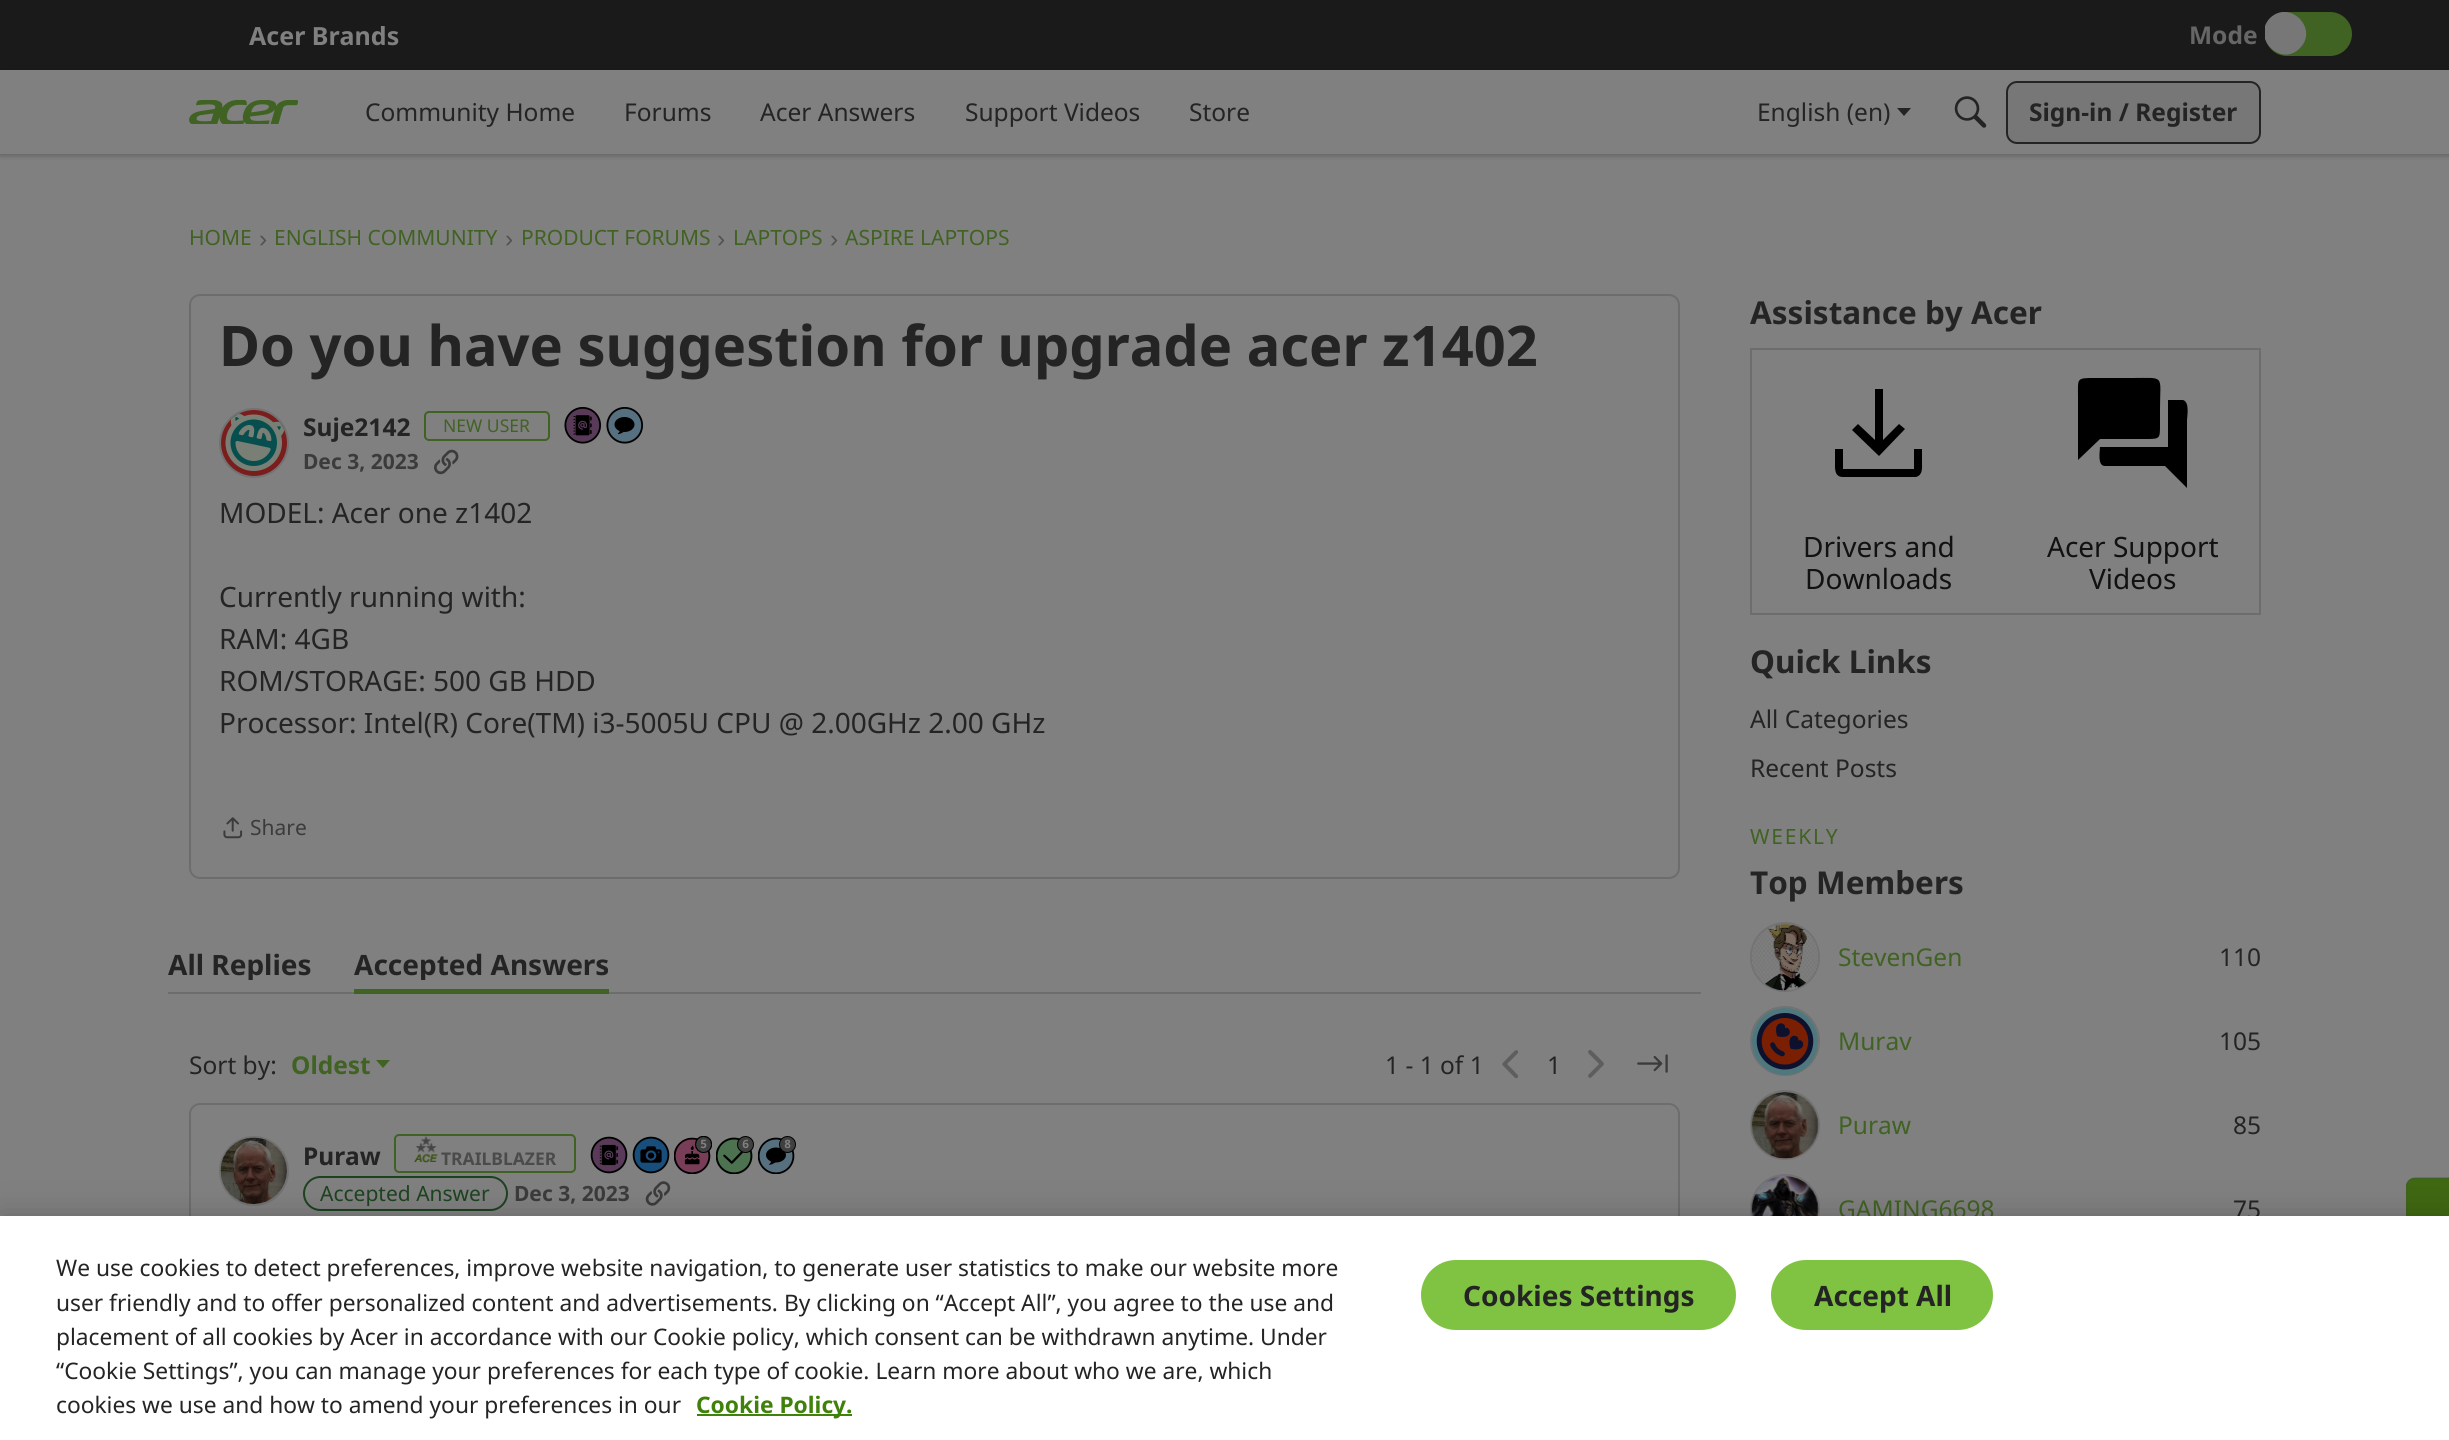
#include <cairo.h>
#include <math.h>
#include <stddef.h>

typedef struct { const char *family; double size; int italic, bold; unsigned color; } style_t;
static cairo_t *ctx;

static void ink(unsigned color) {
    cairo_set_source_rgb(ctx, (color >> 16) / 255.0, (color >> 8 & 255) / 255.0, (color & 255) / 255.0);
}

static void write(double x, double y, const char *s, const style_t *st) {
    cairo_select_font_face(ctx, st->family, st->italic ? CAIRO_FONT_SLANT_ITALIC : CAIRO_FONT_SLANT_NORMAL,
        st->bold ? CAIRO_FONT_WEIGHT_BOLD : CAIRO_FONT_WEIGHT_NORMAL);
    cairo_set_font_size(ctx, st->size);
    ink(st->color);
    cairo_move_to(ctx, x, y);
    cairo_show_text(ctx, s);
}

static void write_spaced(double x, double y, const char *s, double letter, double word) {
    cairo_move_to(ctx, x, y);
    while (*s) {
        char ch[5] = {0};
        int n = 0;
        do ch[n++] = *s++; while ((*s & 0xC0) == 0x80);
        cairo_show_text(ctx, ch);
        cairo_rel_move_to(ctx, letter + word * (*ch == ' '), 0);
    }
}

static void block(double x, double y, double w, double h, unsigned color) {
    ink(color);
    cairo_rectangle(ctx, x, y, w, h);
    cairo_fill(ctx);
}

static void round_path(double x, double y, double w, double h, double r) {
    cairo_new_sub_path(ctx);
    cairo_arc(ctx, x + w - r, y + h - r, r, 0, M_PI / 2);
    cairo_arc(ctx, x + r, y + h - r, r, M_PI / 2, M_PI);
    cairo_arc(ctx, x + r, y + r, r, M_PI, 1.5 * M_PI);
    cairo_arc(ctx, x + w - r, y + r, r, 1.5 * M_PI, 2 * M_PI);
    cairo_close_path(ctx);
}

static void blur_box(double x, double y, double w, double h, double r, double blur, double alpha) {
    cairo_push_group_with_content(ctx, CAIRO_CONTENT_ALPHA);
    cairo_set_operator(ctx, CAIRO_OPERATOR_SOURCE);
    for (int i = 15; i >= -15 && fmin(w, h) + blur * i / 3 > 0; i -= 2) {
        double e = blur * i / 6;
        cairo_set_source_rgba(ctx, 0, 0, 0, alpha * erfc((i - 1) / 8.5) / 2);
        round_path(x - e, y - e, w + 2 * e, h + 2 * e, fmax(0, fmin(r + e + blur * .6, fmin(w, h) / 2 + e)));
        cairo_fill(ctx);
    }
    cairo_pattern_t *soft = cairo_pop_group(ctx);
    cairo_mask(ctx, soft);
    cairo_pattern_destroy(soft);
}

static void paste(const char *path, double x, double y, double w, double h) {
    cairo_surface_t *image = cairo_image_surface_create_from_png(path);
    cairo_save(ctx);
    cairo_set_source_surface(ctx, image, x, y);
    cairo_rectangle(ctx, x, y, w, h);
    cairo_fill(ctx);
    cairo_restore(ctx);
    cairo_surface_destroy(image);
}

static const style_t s1 = {"Noto Sans", 25, 0, 1, 0x808080};
static const style_t s2 = {"Noto Sans", 24.5, 0, 1, 0x666666};
static const style_t s3 = {"Noto Sans", 24.5, 0, 0, 0x242424};
static const style_t s4 = {"Noto Sans", 24.5, 0, 1, 0x242424};
static const style_t s5 = {"Noto Sans", 21, 0, 0, 0x406222};
static const style_t s6 = {"Liberation Sans", 24.5, 0, 0, 0x525252};
static const style_t s7 = {"Noto Sans", 56, 0, 1, 0x242424};
static const style_t s8 = {"Noto Sans", 17.5, 0, 0, 0x406222};
static const style_t s9 = {"Noto Sans", 21, 0, 1, 0x3b3b3b};
static const style_t s10 = {"Noto Sans", 28, 0, 0, 0x242424};
static const style_t s11 = {"Noto Sans", 21, 0, 0, 0x3b3b3b};
static const style_t s12 = {"Noto Sans", 28, 0, 1, 0x242424};
static const style_t s13 = {"Noto Sans", 24.5, 0, 1, 0x406222};
static const style_t s14 = {"Noto Sans", 17.5, 0, 1, 0x4b4b4b};
static const style_t s15 = {"Noto Sans", 21, 0, 0, 0x1c431f};
static const style_t s16 = {"Noto Sans", 31.5, 0, 1, 0x242424};
static const style_t s17 = {"Noto Sans", 28, 0, 0, 0x111111};
static const style_t s18 = {"Noto Sans", 24.5, 0, 0, 0x406222};
static const style_t s19 = {"Noto Sans", 22.75, 0, 0, 0x242424};
static const style_t s20 = {"Noto Sans", 22.75, 0, 1, 0x40810c};

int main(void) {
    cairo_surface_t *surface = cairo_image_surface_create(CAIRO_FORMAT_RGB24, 2449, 1440);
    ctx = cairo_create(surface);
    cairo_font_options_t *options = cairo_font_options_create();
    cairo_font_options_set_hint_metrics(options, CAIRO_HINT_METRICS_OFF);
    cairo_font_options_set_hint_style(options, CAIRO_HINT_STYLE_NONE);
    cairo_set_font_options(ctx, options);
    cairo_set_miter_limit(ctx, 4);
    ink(0x808080);
    cairo_paint(ctx);
    block(0, 0, 2449, 70, 0x1a1a1a);
    write(249, 45, "Acer Brands", &s1);
    write(2189, 44, "Mode", &s2);
    ink(0x406222);
    round_path(2265, 12, 87, 44, 22);
    cairo_fill(ctx);
    cairo_save(ctx);
    cairo_rectangle(ctx, 2265, 12, 87, 48);
    cairo_clip(ctx);
    ink(0x777777);
    cairo_new_path(ctx);
    cairo_move_to(ctx, 2270, 18);
    cairo_curve_to(ctx, 2290, -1, 2319, 29, 2300, 48);
    cairo_curve_to(ctx, 2281, 68, 2251, 38, 2270, 18);
    cairo_close_path(ctx);
    cairo_fill(ctx);
    cairo_restore(ctx);
    cairo_save(ctx);
    cairo_set_fill_rule(ctx, CAIRO_FILL_RULE_EVEN_ODD);
    cairo_new_path(ctx);
    cairo_move_to(ctx, 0, 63);
    cairo_line_to(ctx, 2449, 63);
    cairo_line_to(ctx, 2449, 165);
    cairo_line_to(ctx, 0, 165);
    cairo_close_path(ctx);
    cairo_move_to(ctx, 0, 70);
    cairo_line_to(ctx, 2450, 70);
    cairo_line_to(ctx, 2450, 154);
    cairo_line_to(ctx, 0, 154);
    cairo_close_path(ctx);
    cairo_clip(ctx);
    ink(0x000000);
    blur_box(0, 72, 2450, 84, 0, 2.5, 0.22);
    cairo_restore(ctx);
    paste("pic1.png", 189, 100, 109, 24);
    write(365, 121, "Community Home", &s3);
    write(624, 121, "Forums", &s3);
    write(760, 121, "Acer Answers", &s3);
    write(965, 121, "Support Videos", &s3);
    write(1189, 121, "Store", &s3);
    write(1757, 121, "English (en)", &s3);
    cairo_new_path(ctx);
    cairo_move_to(ctx, 1897, 108);
    cairo_line_to(ctx, 1911, 108);
    cairo_line_to(ctx, 1904, 116);
    cairo_close_path(ctx);
    cairo_fill(ctx);
    paste("pic2.png", 1954, 96, 33, 32);
    ink(0x777777);
    round_path(2007, 82, 253, 61, 10);
    cairo_fill_preserve(ctx);
    ink(0x242424);
    cairo_stroke(ctx);
    write(2029, 121, "Sign-in / Register", &s4);
    write(189, 245, "HOME", &s5);
    write(259, 247, "›", &s6);
    write(274, 245, "ENGLISH COMMUNITY", &s5);
    write(505, 247, "›", &s6);
    write(521, 245, "PRODUCT FORUMS", &s5);
    write(717, 247, "›", &s6);
    write(733, 245, "LAPTOPS", &s5);
    write(830, 247, "›", &s6);
    write(845, 245, "ASPIRE LAPTOPS", &s5);
    round_path(190, 295, 1489, 583, 10);
    ink(0x6d6d6d);
    cairo_stroke(ctx);
    write(219, 366, "Do you have suggestion for upgrade acer z1402", &s7);
    cairo_new_path(ctx);
    cairo_arc(ctx, 254, 443, 34, 0, 2 * M_PI);
    ink(0x727272);
    cairo_stroke(ctx);
    paste("pic3.png", 221, 410, 66, 66);
    write(303, 436, "Suje2142", &s4);
    round_path(425, 412, 124, 28, 4);
    ink(0x406222);
    cairo_stroke(ctx);
    write(443, 432, "NEW USER", &s8);
    paste("pic4.png", 564, 407, 38, 37);
    paste("pic5.png", 606, 407, 38, 37);
    write(303, 469, "Dec 3, 2023", &s9);
    paste("pic6.png", 434, 449, 25, 26);
    write(219, 523, "MODEL: Acer one z1402", &s10);
    write(219, 607, "Currently running with:", &s10);
    write(219, 649, "RAM: 4GB", &s10);
    write(219, 691, "ROM/STORAGE: 500 GB HDD", &s10);
    write(219, 733, "Processor: Intel(R) Core(TM) i3-5005U CPU @ 2.00GHz 2.00 GHz", &s10);
    paste("pic7.png", 223, 817, 20, 22);
    write(250, 835, "Share", &s11);
    block(168, 992, 1533, 2, 0x6d6d6d);
    cairo_save(ctx);
    cairo_rectangle(ctx, 168, 949, 144, 31);
    cairo_clip(ctx);
    write(168, 975, "All Replies", &s12);
    cairo_restore(ctx);
    cairo_save(ctx);
    cairo_rectangle(ctx, 354, 949, 255, 31);
    cairo_clip(ctx);
    write(354, 975, "Accepted Answers", &s12);
    cairo_restore(ctx);
    block(354, 989, 255, 5, 0x406222);
    write(189, 1074, "Sort by:", &s3);
    write(291, 1074, "Oldest", &s13);
    cairo_new_path(ctx);
    cairo_move_to(ctx, 376, 1060);
    cairo_line_to(ctx, 390, 1060);
    cairo_line_to(ctx, 383, 1068);
    cairo_close_path(ctx);
    cairo_fill(ctx);
    write(1385, 1074, "1 - 1 of 1", &s3);
    paste("pic8.png", 1502, 1050, 17, 29);
    write(1547, 1074, "1", &s3);
    paste("pic9.png", 1588, 1050, 16, 28);
    paste("pic10.png", 1637, 1054, 31, 19);
    round_path(190, 1104, 1489, 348, 10);
    ink(0x6d6d6d);
    cairo_stroke(ctx);
    cairo_arc(ctx, 254, 1171, 34, 0, 2 * M_PI);
    ink(0x727272);
    cairo_stroke(ctx);
    paste("pic11.png", 220, 1137, 67, 67);
    write(303, 1165, "Puraw", &s4);
    round_path(395, 1135, 180, 37, 4);
    ink(0x406222);
    cairo_stroke(ctx);
    paste("pic12.png", 414, 1136, 24, 27);
    write(441, 1165, "TRAILBLAZER", &s14);
    paste("pic13.png", 590, 1136, 38, 38);
    paste("pic14.png", 632, 1136, 38, 38);
    paste("pic15.png", 674, 1136, 38, 38);
    paste("pic16.png", 716, 1136, 38, 38);
    paste("pic17.png", 758, 1136, 38, 38);
    round_path(304, 1177, 203, 33, 16.5);
    ink(0x1c431f);
    cairo_stroke(ctx);
    write(320, 1201, "Accepted Answer", &s15);
    write(514, 1201, "Dec 3, 2023", &s9);
    paste("pic18.png", 645, 1181, 26, 25);
    write(1750, 324, "Assistance by Acer", &s16);
    block(1750, 348, 511, 2, 0x6d6d6d);
    block(2259, 348, 2, 266, 0x6d6d6d);
    block(1750, 613, 511, 2, 0x6d6d6d);
    block(1750, 348, 2, 266, 0x6d6d6d);
    ink(0x000000);
    cairo_new_path(ctx);
    cairo_move_to(ctx, 1843, 477);
    cairo_curve_to(ctx, 1834, 477, 1835, 468, 1835, 462);
    cairo_line_to(ctx, 1835, 449);
    cairo_line_to(ctx, 1843, 449);
    cairo_line_to(ctx, 1843, 469);
    cairo_line_to(ctx, 1914, 469);
    cairo_line_to(ctx, 1914, 449);
    cairo_line_to(ctx, 1922, 449);
    cairo_line_to(ctx, 1922, 462);
    cairo_curve_to(ctx, 1922, 468, 1923, 475, 1916, 477);
    cairo_close_path(ctx);
    cairo_move_to(ctx, 1879, 456);
    cairo_line_to(ctx, 1852, 430);
    cairo_line_to(ctx, 1858, 424);
    cairo_line_to(ctx, 1875, 440);
    cairo_line_to(ctx, 1875, 389);
    cairo_line_to(ctx, 1883, 389);
    cairo_line_to(ctx, 1883, 440);
    cairo_line_to(ctx, 1899, 424);
    cairo_line_to(ctx, 1905, 429);
    cairo_close_path(ctx);
    cairo_fill(ctx);
    write(1803, 557, "Drivers and", &s17);
    write(1805, 589, "Downloads", &s17);
    ink(0x000000);
    cairo_new_path(ctx);
    cairo_move_to(ctx, 2105, 466);
    cairo_curve_to(ctx, 2097, 466, 2100, 451, 2100, 447);
    cairo_line_to(ctx, 2168, 447);
    cairo_line_to(ctx, 2168, 400);
    cairo_line_to(ctx, 2183, 400);
    cairo_curve_to(ctx, 2190, 402, 2187, 417, 2187, 420);
    cairo_line_to(ctx, 2187, 488);
    cairo_line_to(ctx, 2165, 466);
    cairo_close_path(ctx);
    cairo_move_to(ctx, 2078, 460);
    cairo_line_to(ctx, 2078, 397);
    cairo_curve_to(ctx, 2078, 378, 2076, 378, 2095, 378);
    cairo_line_to(ctx, 2131, 378);
    cairo_curve_to(ctx, 2166, 378, 2160, 374, 2160, 409);
    cairo_line_to(ctx, 2160, 425);
    cairo_curve_to(ctx, 2160, 439, 2160, 439, 2145, 439);
    cairo_line_to(ctx, 2100, 439);
    cairo_close_path(ctx);
    cairo_fill(ctx);
    write(2047, 557, "Acer Support", &s17);
    write(2089, 589, "Videos", &s17);
    write(1750, 673, "Quick Links", &s16);
    write(1750, 728, "All Categories", &s3);
    write(1750, 777, "Recent Posts", &s3);
    cairo_set_font_size(ctx, 21);
    ink(0x406222);
    write_spaced(1750, 844, "WEEKLY", 1.75, 0);
    write(1750, 894, "Top Members", &s16);
    cairo_new_path(ctx);
    cairo_arc(ctx, 1785, 957, 34, 0, 2 * M_PI);
    ink(0x727272);
    cairo_stroke(ctx);
    paste("pic19.png", 1751, 924, 68, 67);
    write(1838, 966, "StevenGen", &s18);
    write(2219, 966, "110", &s3);
    cairo_new_path(ctx);
    cairo_arc(ctx, 1785, 1041, 34, 0, 2 * M_PI);
    ink(0x727272);
    cairo_stroke(ctx);
    paste("pic20.png", 1752, 1008, 66, 67);
    write(1838, 1050, "Murav", &s18);
    write(2219, 1050, "105", &s3);
    cairo_new_path(ctx);
    cairo_arc(ctx, 1785, 1125, 34, 0, 2 * M_PI);
    ink(0x727272);
    cairo_stroke(ctx);
    paste("pic21.png", 1751, 1092, 68, 67);
    write(1838, 1134, "Puraw", &s18);
    write(2233, 1134, "85", &s3);
    cairo_new_path(ctx);
    cairo_arc(ctx, 1785, 1209, 34, 0, 2 * M_PI);
    ink(0x727272);
    cairo_stroke(ctx);
    paste("pic22.png", 1751, 1176, 68, 40);
    write(1838, 1218, "GAMING6698", &s18);
    write(2233, 1218, "75", &s3);
    ink(0x406812);
    cairo_new_path(ctx);
    cairo_move_to(ctx, 2406, 1307);
    cairo_line_to(ctx, 2406, 1186);
    cairo_curve_to(ctx, 2406, 1182, 2410, 1178, 2415, 1178);
    cairo_line_to(ctx, 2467, 1178);
    cairo_line_to(ctx, 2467, 1316);
    cairo_line_to(ctx, 2415, 1316);
    cairo_curve_to(ctx, 2410, 1316, 2406, 1312, 2406, 1307);
    cairo_close_path(ctx);
    cairo_fill(ctx);
    cairo_new_path(ctx);
    cairo_move_to(ctx, 2407, 1307);
    cairo_line_to(ctx, 2407, 1186.5);
    cairo_curve_to(ctx, 2407, 1182, 2410.5, 1178.5, 2415, 1178.5);
    cairo_line_to(ctx, 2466.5, 1178.5);
    cairo_line_to(ctx, 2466.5, 1315);
    cairo_line_to(ctx, 2415, 1315);
    cairo_curve_to(ctx, 2410.5, 1315, 2407, 1311.5, 2407, 1307);
    cairo_close_path(ctx);
    ink(0x406222);
    cairo_set_line_width(ctx, 1.8);
    cairo_stroke(ctx);
    ink(0x000000);
    blur_box(0, 1216, 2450, 224, 0, 16, 0.2);
    block(0, 1216, 2449, 224, 0xffffff);
    write(56, 1276, "We use cookies to detect preferences, improve website navigation, to generate user statistics to make our website more", &s19);
    write(56, 1311, "user friendly and to offer personalized content and advertisements.", &s19);
    write(784, 1311, "By clicking on “Accept All”, you agree to the use and", &s19);
    write(56, 1345, "placement of all cookies by Acer in accordance with our Cookie policy, which consent can be withdrawn anytime. Under", &s19);
    write(56, 1379, "“Cookie Settings”, you can manage your preferences for each type of cookie. Learn more about who we are, which", &s19);
    write(56, 1413, "cookies we use and how to amend your preferences in our", &s19);
    block(697, 1414, 155, 2, 0x40810c);
    write(696, 1413, "Cookie Policy.", &s20);
    ink(0x80c343);
    round_path(1421, 1260, 315, 70, 35);
    cairo_fill(ctx);
    write(1463, 1306, "Cookies Settings", &s12);
    ink(0x80c343);
    round_path(1771, 1260, 222, 70, 35);
    cairo_fill(ctx);
    write(1814, 1306, "Accept All", &s12);
    cairo_surface_write_to_png(surface, "screenshot.png");
    cairo_font_options_destroy(options);
    cairo_destroy(ctx);
    cairo_surface_destroy(surface);
    return 0;
}
